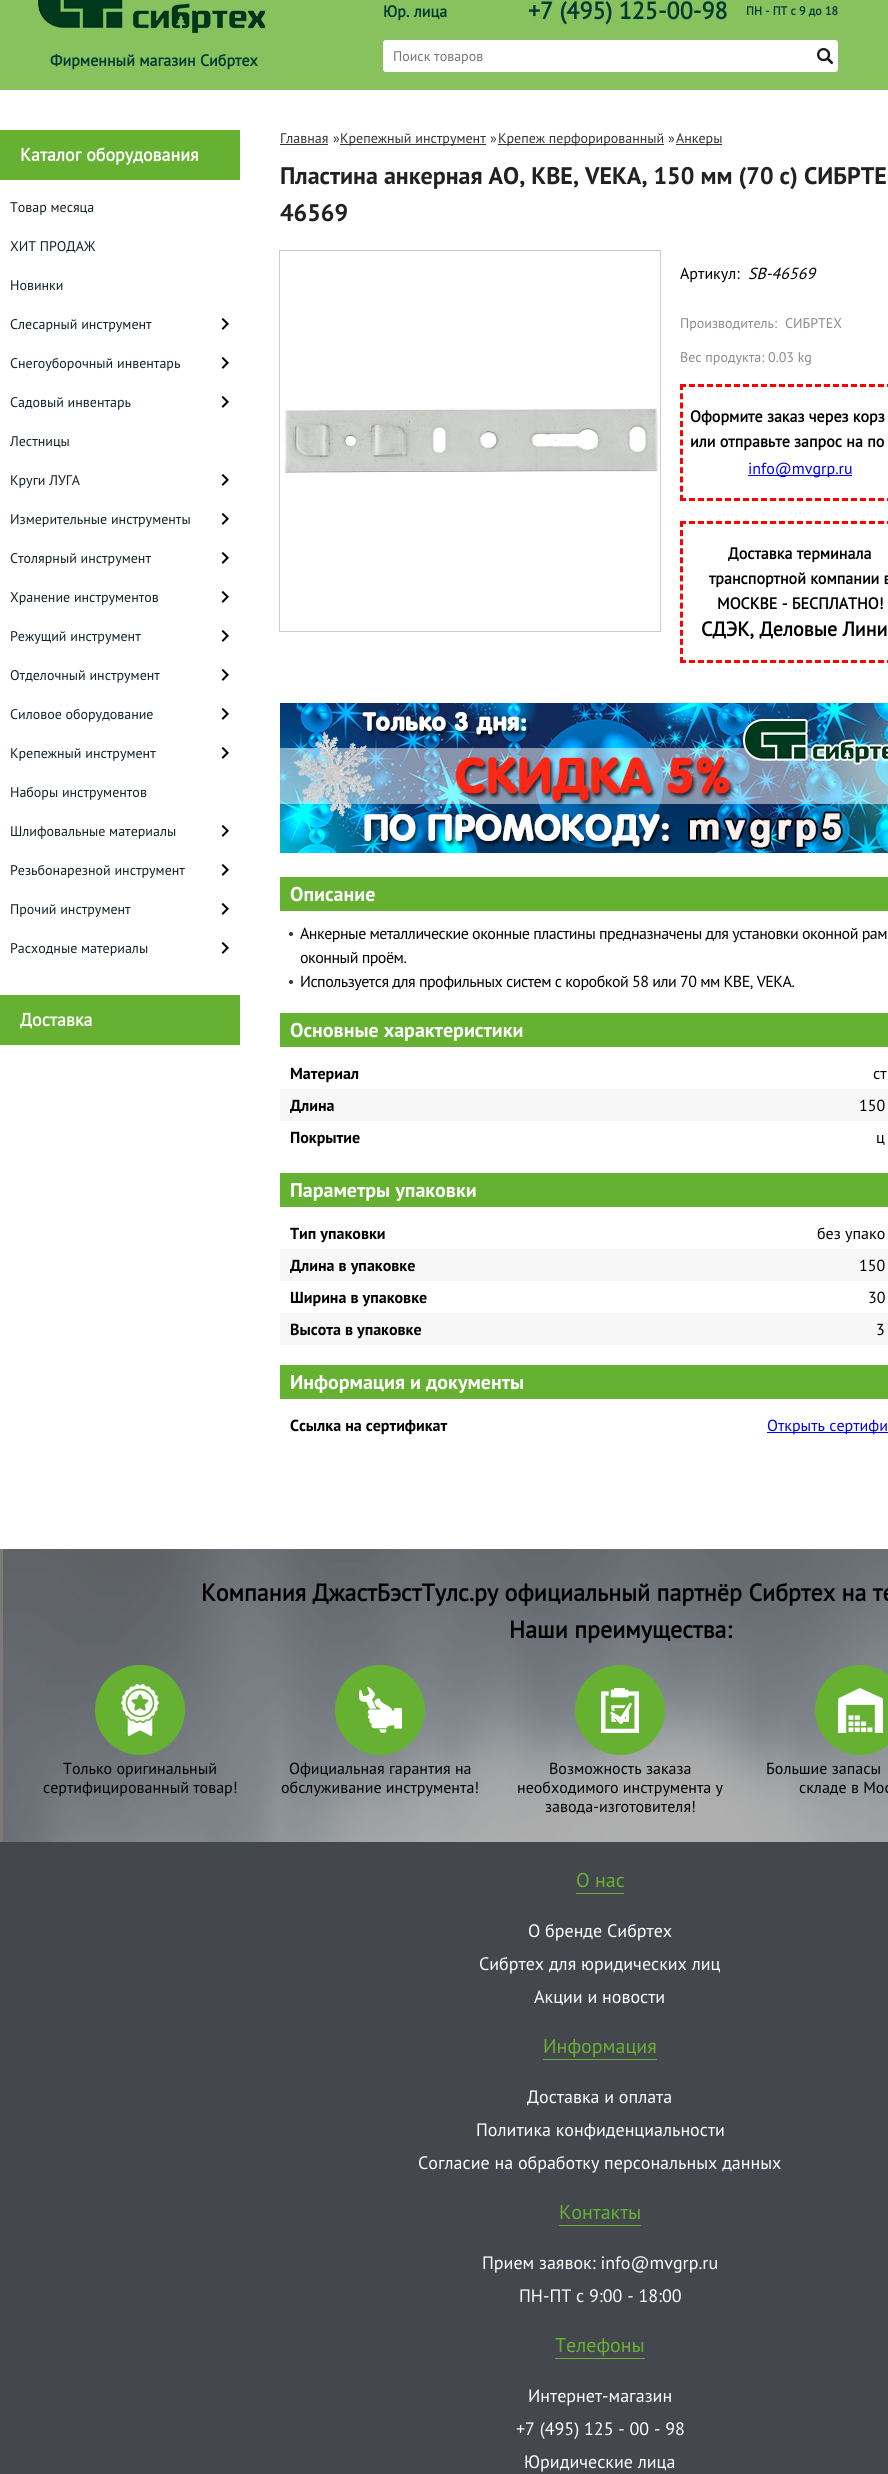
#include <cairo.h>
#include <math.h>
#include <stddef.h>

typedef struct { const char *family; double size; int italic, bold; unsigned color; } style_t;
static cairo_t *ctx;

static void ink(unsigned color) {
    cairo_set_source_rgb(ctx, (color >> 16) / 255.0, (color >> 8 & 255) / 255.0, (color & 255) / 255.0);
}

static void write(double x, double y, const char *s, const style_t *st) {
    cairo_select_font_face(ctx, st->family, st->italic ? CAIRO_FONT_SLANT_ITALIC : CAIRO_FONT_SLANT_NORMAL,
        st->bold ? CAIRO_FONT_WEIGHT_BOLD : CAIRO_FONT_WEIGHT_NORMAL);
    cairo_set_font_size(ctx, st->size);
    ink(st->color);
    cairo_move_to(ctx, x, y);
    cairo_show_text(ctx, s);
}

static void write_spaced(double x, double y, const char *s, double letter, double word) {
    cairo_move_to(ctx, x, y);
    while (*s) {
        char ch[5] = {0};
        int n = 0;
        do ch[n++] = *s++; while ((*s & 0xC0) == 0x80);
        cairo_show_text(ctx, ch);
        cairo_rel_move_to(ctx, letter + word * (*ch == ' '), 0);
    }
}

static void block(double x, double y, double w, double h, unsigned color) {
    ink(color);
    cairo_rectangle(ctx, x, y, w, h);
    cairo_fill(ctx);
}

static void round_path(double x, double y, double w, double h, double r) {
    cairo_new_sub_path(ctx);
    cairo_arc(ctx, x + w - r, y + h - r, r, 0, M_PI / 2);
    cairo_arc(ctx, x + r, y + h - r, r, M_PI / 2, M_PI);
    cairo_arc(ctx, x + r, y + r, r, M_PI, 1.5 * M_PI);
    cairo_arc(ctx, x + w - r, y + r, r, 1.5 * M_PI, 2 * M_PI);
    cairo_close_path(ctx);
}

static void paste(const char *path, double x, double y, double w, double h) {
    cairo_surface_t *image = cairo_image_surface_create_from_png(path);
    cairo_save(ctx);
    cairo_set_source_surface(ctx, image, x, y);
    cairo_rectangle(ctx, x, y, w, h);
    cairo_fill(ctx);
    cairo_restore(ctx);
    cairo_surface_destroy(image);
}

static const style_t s1 = {"PT Sans", 16, 0, 1, 0x013a33};
static const style_t s2 = {"PT Sans", 24, 0, 1, 0x013a33};
static const style_t s3 = {"PT Sans", 12, 0, 1, 0x013a33};
static const style_t s4 = {"PT Sans", 14, 0, 0, 0x757575};
static const style_t s5 = {"PT Sans", 18, 0, 1, 0xffffff};
static const style_t s6 = {"PT Sans", 14, 0, 0, 0x132229};
static const style_t s7 = {"PT Sans", 14, 0, 0, 0x333333};
static const style_t s8 = {"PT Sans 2", 24, 0, 1, 0x212121};
static const style_t s9 = {"PT Sans", 16, 0, 0, 0x000000};
static const style_t s10 = {"PT Sans", 16, 1, 0, 0x000000};
static const style_t s11 = {"PT Sans", 14, 0, 0, 0x8b8b8b};
static const style_t s12 = {"PT Sans", 16, 0, 1, 0x000000};
static const style_t s13 = {"PT Sans", 16, 0, 0, 0x0000ee};
static const style_t s14 = {"PT Sans", 20, 0, 1, 0x000000};
static const style_t s15 = {"PT Sans 2", 20, 0, 1, 0xffffff};
static const style_t s16 = {"PT Sans 2", 16, 0, 1, 0x000000};
static const style_t s17 = {"PT Sans", 24, 0, 1, 0x000000};
static const style_t s18 = {"PT Sans", 20, 0, 0, 0x66b132};
static const style_t s19 = {"PT Sans", 18, 0, 0, 0xffffff};

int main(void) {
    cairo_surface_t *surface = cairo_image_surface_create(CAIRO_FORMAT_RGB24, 888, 2474);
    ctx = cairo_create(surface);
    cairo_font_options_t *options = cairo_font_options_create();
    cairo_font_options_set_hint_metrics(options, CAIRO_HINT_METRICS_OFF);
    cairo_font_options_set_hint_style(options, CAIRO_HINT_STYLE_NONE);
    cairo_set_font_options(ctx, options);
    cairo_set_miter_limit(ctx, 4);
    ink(0xffffff);
    cairo_paint(ctx);
    block(0, 0, 888, 90, 0x88c25f);
    paste("pic1.png", 38, 0, 227, 33);
    write(50, 66, "Фирменный магазин Сибртех", &s1);
    write(383, 17, "Юр. лица", &s1);
    write(528, 19, "+7 (495) 125-00-98", &s2);
    write(746, 15, "ПН - ПТ с 9 до 18", &s3);
    ink(0xffffff);
    round_path(383, 40, 455, 32, 3);
    cairo_fill(ctx);
    write(393, 61, "Поиск товаров", &s4);
    paste("pic2.png", 817, 48, 16, 16);
    block(0, 130, 240, 50, 0x66b132);
    write(20, 161, "Каталог оборудования", &s5);
    write(10, 212, "Товар месяца", &s6);
    write(10, 251, "ХИТ ПРОДАЖ", &s6);
    write(10, 290, "Новинки", &s6);
    write(10, 329, "Слесарный инструмент", &s6);
    paste("pic3.png", 221, 318, 8, 12);
    write(10, 368, "Снегоуборочный инвентарь", &s6);
    paste("pic3.png", 221, 357, 8, 12);
    write(10, 407, "Садовый инвентарь", &s6);
    paste("pic3.png", 221, 396, 8, 12);
    write(10, 446, "Лестницы", &s6);
    write(10, 485, "Круги ЛУГА", &s6);
    paste("pic3.png", 221, 474, 8, 12);
    write(10, 524, "Измерительные инструменты", &s6);
    paste("pic3.png", 221, 513, 8, 12);
    write(10, 563, "Столярный инструмент", &s6);
    paste("pic3.png", 221, 552, 8, 12);
    write(10, 602, "Хранение инструментов", &s6);
    paste("pic3.png", 221, 591, 8, 12);
    write(10, 641, "Режущий инструмент", &s6);
    paste("pic3.png", 221, 630, 8, 12);
    write(10, 680, "Отделочный инструмент", &s6);
    paste("pic3.png", 221, 669, 8, 12);
    write(10, 719, "Силовое оборудование", &s6);
    paste("pic3.png", 221, 708, 8, 12);
    write(10, 758, "Крепежный инструмент", &s6);
    paste("pic3.png", 221, 747, 8, 12);
    write(10, 797, "Наборы инструментов", &s6);
    write(10, 836, "Шлифовальные материалы", &s6);
    paste("pic3.png", 221, 825, 8, 12);
    write(10, 875, "Резьбонарезной инструмент", &s6);
    paste("pic3.png", 221, 864, 8, 12);
    write(10, 914, "Прочий инструмент", &s6);
    paste("pic3.png", 221, 903, 8, 12);
    write(10, 953, "Расходные материалы", &s6);
    paste("pic3.png", 221, 942, 8, 12);
    block(0, 995, 240, 50, 0x66b132);
    write(20, 1026, "Доставка", &s5);
    write(280, 143, "Главная", &s7);
    block(280, 144, 48, 1, 0x333333);
    write(333, 143, "»", &s7);
    block(340, 144, 146, 1, 0x333333);
    write(340, 143, "Крепежный инструмент", &s7);
    write(490, 143, "»", &s7);
    block(498, 144, 166, 1, 0x333333);
    write(498, 143, "Крепеж перфорированный", &s7);
    write(668, 143, "»", &s7);
    block(676, 144, 46, 1, 0x333333);
    write(676, 143, "Анкеры", &s7);
    write(280, 184, "Пластина анкерная АО, KBE, VEKA, 150 мм (70 c) СИБРТЕ", &s8);
    write(280, 221, "46569", &s8);
    cairo_rectangle(ctx, 279.5, 250.5, 381, 381);
    ink(0xcccccc);
    cairo_set_line_width(ctx, 1);
    cairo_stroke(ctx);
    paste("pic4.png", 284, 408, 374, 65);
    write(680, 279, "Артикул:", &s9);
    write(748, 279, "SB-46569", &s10);
    write(680, 328, "Производитель:", &s11);
    write(785, 328, "СИБРТЕХ", &s11);
    write(680, 362, "Вес продукта: 0.03 kg", &s11);
    cairo_new_path(ctx);
    cairo_move_to(ctx, 680, 385.5);
    cairo_line_to(ctx, 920, 385.5);
    ink(0xff0000);
    cairo_set_line_width(ctx, 3);
    cairo_set_dash(ctx, (double[]){6, 3}, 2, 0);
    cairo_stroke(ctx);
    cairo_new_path(ctx);
    cairo_move_to(ctx, 680, 499.5);
    cairo_line_to(ctx, 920, 499.5);
    cairo_stroke(ctx);
    cairo_new_path(ctx);
    cairo_move_to(ctx, 681.5, 384);
    cairo_line_to(ctx, 681.5, 501);
    cairo_set_dash(ctx, (double[]){6, 3.25}, 2, 0);
    cairo_stroke(ctx);
    write(690, 422, "Оформите заказ через корз", &s12);
    write(690, 447, "или отправьте запрос на по", &s12);
    block(748, 475, 104, 1, 0x0000ee);
    write(748, 474, "info@mvgrp.ru", &s13);
    cairo_new_path(ctx);
    cairo_move_to(ctx, 680, 522.5);
    cairo_line_to(ctx, 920, 522.5);
    ink(0xff0000);
    cairo_set_dash(ctx, (double[]){6, 3}, 2, 0);
    cairo_stroke(ctx);
    cairo_new_path(ctx);
    cairo_move_to(ctx, 680, 661.5);
    cairo_line_to(ctx, 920, 661.5);
    cairo_stroke(ctx);
    cairo_new_path(ctx);
    cairo_move_to(ctx, 681.5, 521);
    cairo_line_to(ctx, 681.5, 663);
    cairo_set_dash(ctx, (double[]){6, 3.07}, 2, 0);
    cairo_stroke(ctx);
    write(728, 559, "Доставка терминала", &s12);
    write(709, 584, "транспортной компании в", &s12);
    write(717, 609, "МОСКВЕ - БЕСПЛАТНО!", &s12);
    write(701, 636, "СДЭК, Деловые Лини", &s14);
    paste("pic5.png", 280, 703, 608, 150);
    block(280, 877, 608, 34, 0x66b132);
    write(290, 901, "Описание", &s15);
    ink(0x333333);
    cairo_new_path(ctx);
    cairo_arc(ctx, 291, 934, 2, 0, 2 * M_PI);
    cairo_fill(ctx);
    cairo_select_font_face(ctx, "PT Sans", CAIRO_FONT_SLANT_NORMAL, CAIRO_FONT_WEIGHT_NORMAL);
    cairo_set_font_size(ctx, 16);
    ink(0x000000);
    write_spaced(300, 939, "Анкерные металлические оконные пластины предназначены для установки оконной рам", -0.5, 0);
    write_spaced(300, 963, "оконный проём.", -0.5, 0);
    ink(0x333333);
    cairo_new_path(ctx);
    cairo_arc(ctx, 291, 982, 2, 0, 2 * M_PI);
    cairo_fill(ctx);
    ink(0x000000);
    write_spaced(300, 987, "Используется для профильных систем с коробкой 58 или 70 мм KBE, VEKA.", -0.5, 0);
    block(280, 1013, 608, 34, 0x66b132);
    write(290, 1037, "Основные характеристики", &s15);
    write(290, 1079, "Материал", &s16);
    write(873, 1079, "ст", &s9);
    block(280, 1089, 608, 32, 0xf7f7f7);
    write(290, 1111, "Длина", &s16);
    write(859, 1111, "150", &s9);
    write(290, 1143, "Покрытие", &s16);
    write(876, 1143, "ц", &s9);
    block(280, 1173, 608, 34, 0x66b132);
    write(290, 1197, "Параметры упаковки", &s15);
    write(290, 1239, "Тип упаковки", &s16);
    write(817, 1239, "без упако", &s9);
    block(280, 1249, 608, 32, 0xf7f7f7);
    write(290, 1271, "Длина в упаковке", &s16);
    write(859, 1271, "150", &s9);
    write(290, 1303, "Ширина в упаковке", &s16);
    write(868, 1303, "30", &s9);
    block(280, 1313, 608, 32, 0xf7f7f7);
    write(290, 1335, "Высота в упаковке", &s16);
    write(876, 1335, "3", &s9);
    block(280, 1365, 608, 34, 0x66b132);
    write(290, 1389, "Информация и документы", &s15);
    write(290, 1431, "Ссылка на сертификат", &s16);
    block(767, 1432, 121, 1, 0x0000ee);
    write(767, 1431, "Открыть сертифи", &s13);
    paste("pic6.png", 0, 1549, 888, 293);
    write(201, 1601, "Компания ДжастБэстТулс.ру официальный партнёр Сибртех на те", &s17);
    write(509, 1638, "Наши преимущества:", &s17);
    ink(0x66b132);
    cairo_new_path(ctx);
    cairo_arc(ctx, 140, 1710, 45, 0, 2 * M_PI);
    cairo_fill(ctx);
    paste("pic7.png", 121, 1684, 38, 52);
    write(63, 1774, "Только оригинальный", &s9);
    write(43, 1793, "сертифицированный товар!", &s9);
    ink(0x66b132);
    cairo_new_path(ctx);
    cairo_arc(ctx, 380, 1710, 45, 0, 2 * M_PI);
    cairo_fill(ctx);
    paste("pic8.png", 359, 1687, 43, 46);
    write(289, 1774, "Официальная гарантия на", &s9);
    write(281, 1793, "обслуживание инструмента!", &s9);
    ink(0x66b132);
    cairo_new_path(ctx);
    cairo_arc(ctx, 620, 1710, 45, 0, 2 * M_PI);
    cairo_fill(ctx);
    paste("pic9.png", 601, 1688, 38, 45);
    write(549, 1774, "Возможность заказа", &s9);
    write(517, 1793, "необходимого инструмента у", &s9);
    write(545, 1812, "завода-изготовителя!", &s9);
    ink(0x66b132);
    cairo_new_path(ctx);
    cairo_arc(ctx, 860, 1710, 45, 0, 2 * M_PI);
    cairo_fill(ctx);
    paste("pic10.png", 838, 1688, 45, 45);
    write(766, 1774, "Большие запасы", &s9);
    write(799, 1793, "складе в Мос", &s9);
    block(0, 1842, 888, 632, 0x44474e);
    block(576, 1893, 48, 1, 0x66b132);
    write(576, 1887, "О нас", &s18);
    write(528, 1937, "О бренде Сибртех", &s19);
    write(479, 1970, "Сибртех для юридических лиц", &s19);
    write(534, 2003, "Акции и новости", &s19);
    block(543, 2059, 114, 1, 0x66b132);
    write(543, 2053, "Информация", &s18);
    write(527, 2103, "Доставка и оплата", &s19);
    write(476, 2136, "Политика конфиденциальности", &s19);
    write(418, 2169, "Согласие на обработку персональных данных", &s19);
    block(559, 2225, 82, 1, 0x66b132);
    write(559, 2219, "Контакты", &s18);
    write(482, 2269, "Прием заявок: info@mvgrp.ru", &s19);
    write(519, 2302, "ПН-ПТ с 9:00 - 18:00", &s19);
    block(555, 2358, 90, 1, 0x66b132);
    write(555, 2352, "Телефоны", &s18);
    write(528, 2402, "Интернет-магазин", &s19);
    write(516, 2435, "+7 (495) 125 - 00 - 98", &s19);
    write(524, 2468, "Юридические лица", &s19);
    cairo_surface_write_to_png(surface, "screenshot.png");
    cairo_font_options_destroy(options);
    cairo_destroy(ctx);
    cairo_surface_destroy(surface);
    return 0;
}
